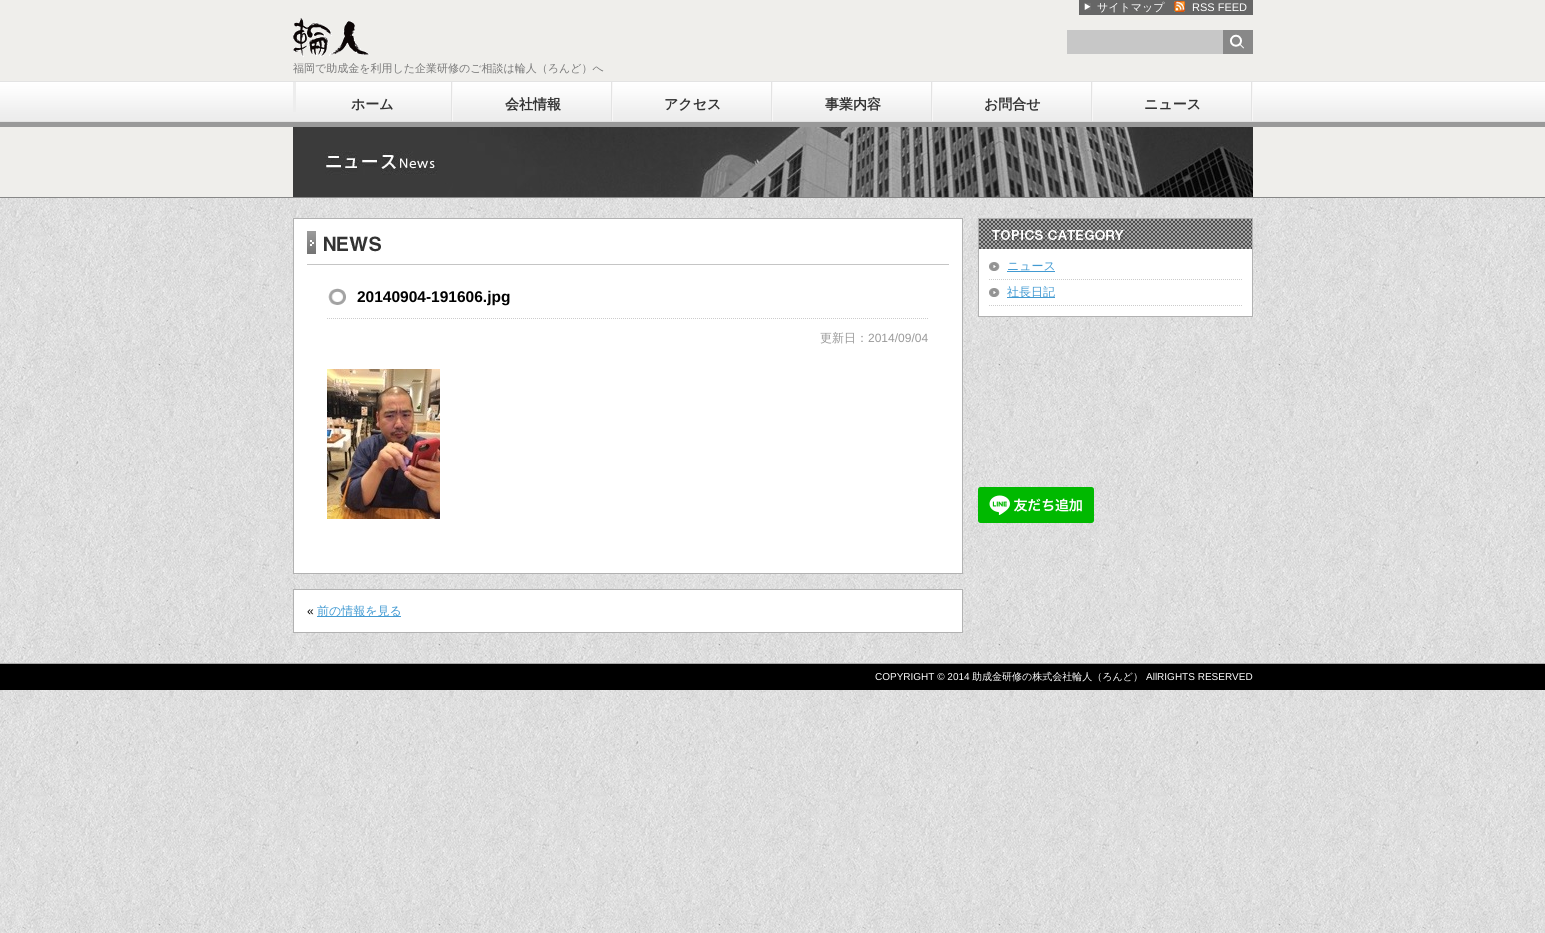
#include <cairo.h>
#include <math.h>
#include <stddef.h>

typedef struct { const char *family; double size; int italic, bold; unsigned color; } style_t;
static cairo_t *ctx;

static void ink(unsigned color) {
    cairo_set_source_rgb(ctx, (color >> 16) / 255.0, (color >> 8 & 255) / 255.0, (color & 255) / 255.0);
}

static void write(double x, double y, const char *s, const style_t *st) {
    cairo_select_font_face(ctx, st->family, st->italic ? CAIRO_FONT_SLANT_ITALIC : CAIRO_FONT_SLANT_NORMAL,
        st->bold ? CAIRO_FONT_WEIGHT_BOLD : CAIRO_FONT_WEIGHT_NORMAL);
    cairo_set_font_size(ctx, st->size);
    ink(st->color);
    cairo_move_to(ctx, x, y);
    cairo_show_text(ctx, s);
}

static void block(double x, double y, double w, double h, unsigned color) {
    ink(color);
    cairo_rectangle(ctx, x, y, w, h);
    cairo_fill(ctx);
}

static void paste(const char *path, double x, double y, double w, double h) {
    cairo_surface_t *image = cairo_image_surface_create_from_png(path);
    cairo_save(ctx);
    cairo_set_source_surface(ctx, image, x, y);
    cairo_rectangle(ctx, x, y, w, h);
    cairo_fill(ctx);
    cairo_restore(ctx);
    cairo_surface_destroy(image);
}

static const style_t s1 = {"WenQuanYi Zen Hei Medium", 11, 0, 0, 0xffffff};
static const style_t s2 = {"Liberation Sans", 11, 0, 0, 0xffffff};
static const style_t s3 = {"WenQuanYi Zen Hei Medium", 11, 0, 0, 0x797979};
static const style_t s4 = {"WenQuanYi Zen Hei", 14, 0, 1, 0x333333};
static const style_t s5 = {"WenQuanYi Zen Hei Medium", 12, 0, 0, 0x429ad2};
static const style_t s6 = {"Liberation Sans", 15.5, 0, 1, 0x000000};
static const style_t s7 = {"WenQuanYi Zen Hei Medium", 12, 0, 0, 0x999999};
static const style_t s8 = {"Liberation Sans", 12, 0, 0, 0x999999};
static const style_t s9 = {"Liberation Sans", 12, 0, 0, 0x000000};
static const style_t s10 = {"Liberation Sans", 10, 0, 0, 0xffffff};
static const style_t s11 = {"WenQuanYi Zen Hei Medium", 10, 0, 0, 0xffffff};

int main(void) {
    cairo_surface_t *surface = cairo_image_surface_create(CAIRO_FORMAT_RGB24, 1545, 933);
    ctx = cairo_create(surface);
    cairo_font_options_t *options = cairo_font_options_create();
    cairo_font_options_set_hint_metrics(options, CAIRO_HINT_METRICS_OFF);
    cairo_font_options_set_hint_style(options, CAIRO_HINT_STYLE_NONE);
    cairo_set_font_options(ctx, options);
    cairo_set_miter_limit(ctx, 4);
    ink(0xffffff);
    cairo_paint(ctx);
    paste("pic1.png", 0, 198, 1545, 735);
    block(0, 0, 1545, 197, 0xefeeeb);
    paste("pic2.png", 0, 81, 1545, 46);
    block(0, 197, 1545, 1, 0x878787);
    block(1079, 0, 174, 15, 0x666666);
    paste("pic3.png", 1084, 3, 7, 7);
    write(1097, 11, "サイトマップ", &s1);
    paste("pic4.png", 1174, 1, 11, 11);
    write(1192, 11, "RSS FEED", &s2);
    block(1067, 30, 156, 24, 0xc7c7c7);
    paste("pic5.png", 1223, 30, 30, 24);
    paste("pic6.png", 293, 18, 77, 39);
    write(293, 72, "福岡で助成金を利用した企業研修のご相談は輪人（ろんど）へ", &s3);
    block(293, 82, 3, 30, 0xededed);
    paste("pic7.png", 451, 82, 2, 39);
    write(351, 109, "ホーム", &s4);
    paste("pic7.png", 611, 82, 2, 39);
    write(505, 109, "会社情報", &s4);
    paste("pic7.png", 771, 82, 2, 39);
    write(664, 109, "アクセス", &s4);
    paste("pic7.png", 931, 82, 2, 39);
    write(825, 109, "事業内容", &s4);
    paste("pic7.png", 1091, 82, 2, 39);
    write(984, 109, "お問合せ", &s4);
    paste("pic7.png", 1251, 82, 2, 39);
    write(1144, 109, "ニュース", &s4);
    paste("pic8.png", 293, 127, 960, 70);
    block(979, 249, 273, 67, 0xffffff);
    cairo_rectangle(ctx, 978.5, 218.5, 274, 98);
    ink(0xb1b1b1);
    cairo_set_line_width(ctx, 1);
    cairo_stroke(ctx);
    paste("pic9.png", 979, 219, 273, 30);
    paste("pic10.png", 989, 262, 11, 9);
    cairo_new_path(ctx);
    cairo_move_to(ctx, 989, 279.5);
    cairo_line_to(ctx, 1242, 279.5);
    ink(0xcccccc);
    cairo_set_dash(ctx, (double[]){1, 1}, 2, 0);
    cairo_stroke(ctx);
    write(1007, 270, "ニュース", &s5);
    block(1007, 271, 48, 1, 0x429ad2);
    paste("pic10.png", 989, 288, 11, 9);
    cairo_new_path(ctx);
    cairo_move_to(ctx, 989, 305.5);
    cairo_line_to(ctx, 1242, 305.5);
    ink(0xcccccc);
    cairo_stroke(ctx);
    block(1007, 297, 48, 1, 0x429ad2);
    write(1007, 296, "社長日記", &s5);
    paste("pic11.png", 978, 487, 116, 36);
    ink(0xffffff);
    cairo_rectangle(ctx, 293.5, 218.5, 669, 355);
    cairo_fill_preserve(ctx);
    ink(0xb1b1b1);
    cairo_set_dash(ctx, NULL, 0, 0);
    cairo_stroke(ctx);
    block(307, 264, 642, 1, 0xc5c5c5);
    paste("pic12.png", 307, 231, 74, 23);
    paste("pic13.png", 328, 288, 18, 17);
    cairo_new_path(ctx);
    cairo_move_to(ctx, 327, 318.5);
    cairo_line_to(ctx, 929, 318.5);
    ink(0xcccccc);
    cairo_set_dash(ctx, (double[]){1, 1}, 2, 0);
    cairo_stroke(ctx);
    write(357, 302, "20140904-191606.jpg", &s6);
    write(820, 342, "更新日：", &s7);
    write(868, 342, "2014/09/04", &s8);
    paste("pic14.png", 327, 369, 113, 150);
    ink(0xffffff);
    cairo_rectangle(ctx, 293.5, 589.5, 669, 43);
    cairo_fill_preserve(ctx);
    ink(0xb1b1b1);
    cairo_set_dash(ctx, NULL, 0, 0);
    cairo_stroke(ctx);
    write(307, 615, "«", &s9);
    block(317, 616, 84, 1, 0x429ad2);
    write(317, 615, "前の情報を見る", &s5);
    block(0, 664, 1545, 26, 0x000000);
    block(0, 663, 1545, 1, 0xaaaaaa);
    write(875, 680, "COPYRIGHT © 2014", &s10);
    write(972, 680, "助成金研修の株式会社輪人（ろんど）", &s11);
    write(1146, 680, "AllRIGHTS RESERVED", &s10);
    cairo_surface_write_to_png(surface, "screenshot.png");
    cairo_font_options_destroy(options);
    cairo_destroy(ctx);
    cairo_surface_destroy(surface);
    return 0;
}
